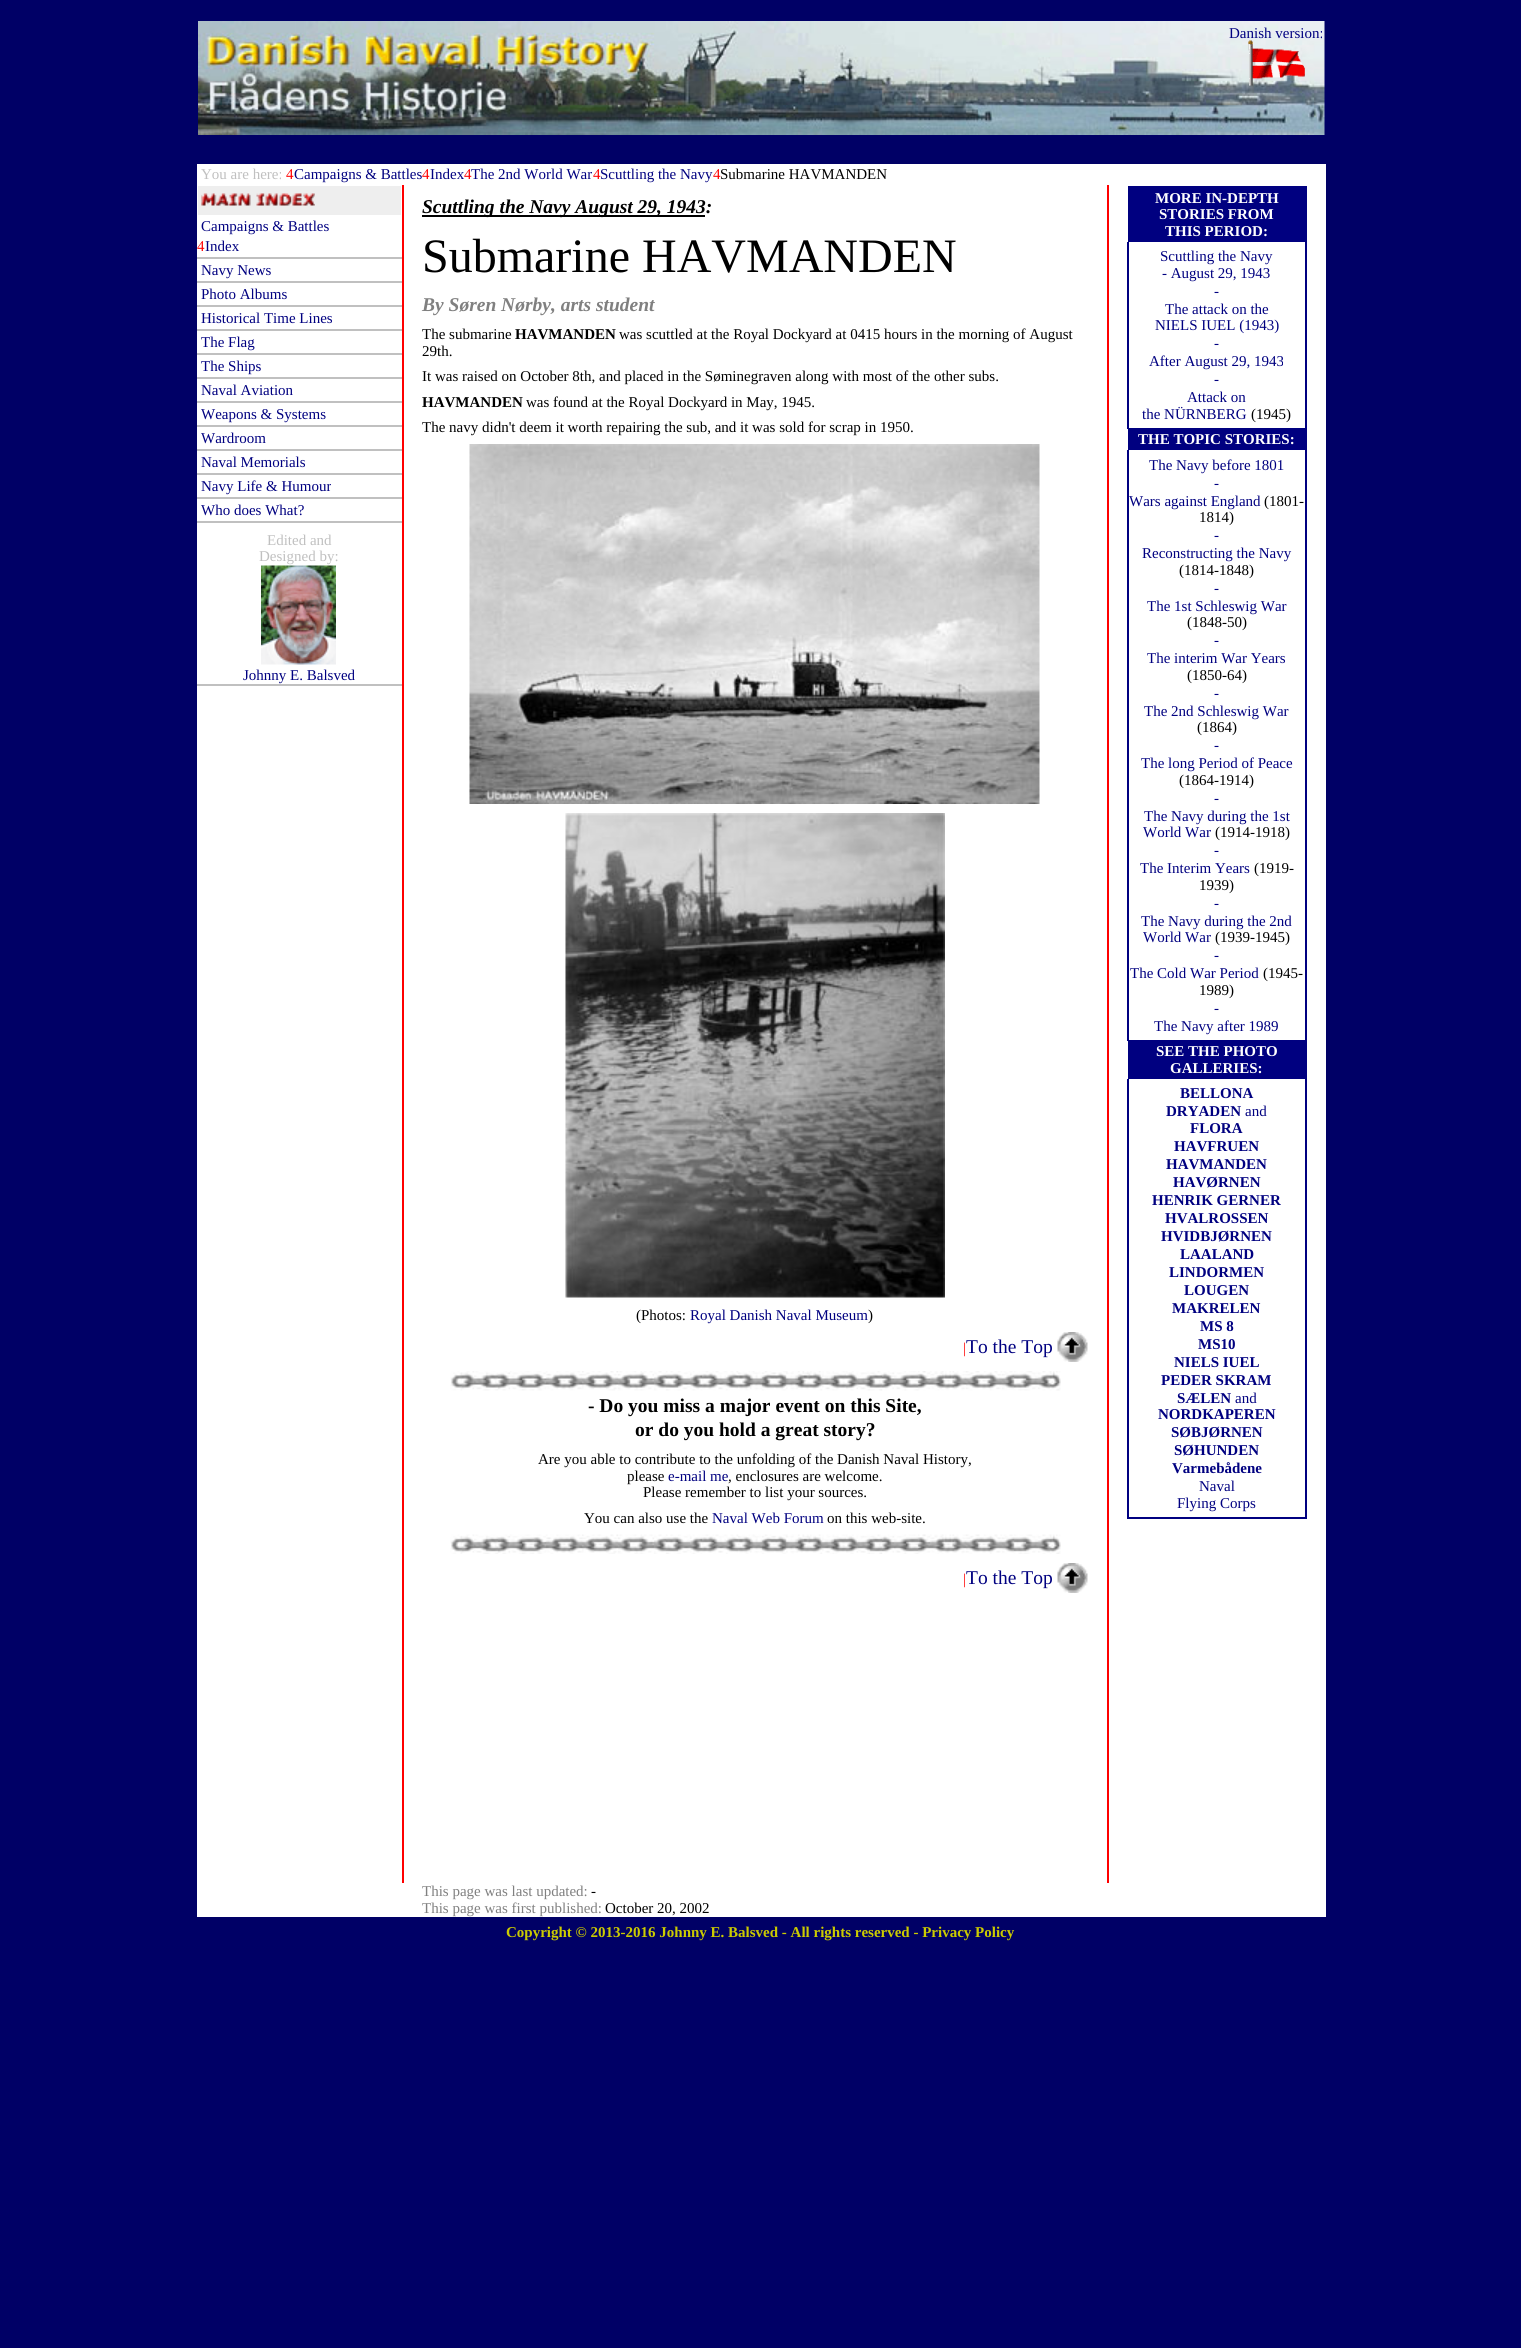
#include <cairo.h>
#include <math.h>
#include <stddef.h>

typedef struct { const char *family; double size; int italic, bold; unsigned color; } style_t;
static cairo_t *ctx;

static void ink(unsigned color) {
    cairo_set_source_rgb(ctx, (color >> 16) / 255.0, (color >> 8 & 255) / 255.0, (color & 255) / 255.0);
}

static void write(double x, double y, const char *s, const style_t *st) {
    cairo_select_font_face(ctx, st->family, st->italic ? CAIRO_FONT_SLANT_ITALIC : CAIRO_FONT_SLANT_NORMAL,
        st->bold ? CAIRO_FONT_WEIGHT_BOLD : CAIRO_FONT_WEIGHT_NORMAL);
    cairo_set_font_size(ctx, st->size);
    ink(st->color);
    cairo_move_to(ctx, x, y);
    cairo_show_text(ctx, s);
}

static void block(double x, double y, double w, double h, unsigned color) {
    ink(color);
    cairo_rectangle(ctx, x, y, w, h);
    cairo_fill(ctx);
}

static void paste(const char *path, double x, double y, double w, double h) {
    cairo_surface_t *image = cairo_image_surface_create_from_png(path);
    cairo_save(ctx);
    cairo_set_source_surface(ctx, image, x, y);
    cairo_rectangle(ctx, x, y, w, h);
    cairo_fill(ctx);
    cairo_restore(ctx);
    cairo_surface_destroy(image);
}

static const style_t s1 = {"Liberation Serif", 15, 0, 0, 0x000080};
static const style_t s2 = {"Liberation Serif", 15, 0, 0, 0xc0c0c0};
static const style_t s3 = {"Liberation Serif", 15, 0, 0, 0xff0000};
static const style_t s4 = {"Liberation Serif", 15, 0, 0, 0x000000};
static const style_t s5 = {"Liberation Serif", 19.5, 1, 1, 0x000000};
static const style_t s6 = {"Liberation Serif", 48, 0, 0, 0x000000};
static const style_t s7 = {"Liberation Serif", 19.5, 1, 1, 0x808080};
static const style_t s8 = {"Liberation Serif", 15, 0, 1, 0x000000};
static const style_t s9 = {"Liberation Serif", 19.5, 0, 0, 0x000080};
static const style_t s10 = {"Liberation Serif", 19.5, 0, 1, 0x000000};
static const style_t s11 = {"Liberation Serif", 15, 0, 1, 0xffffff};
static const style_t s12 = {"Liberation Serif", 15, 0, 1, 0x000080};
static const style_t s13 = {"Liberation Serif", 15, 0, 0, 0x808080};
static const style_t s14 = {"Liberation Serif", 15, 0, 1, 0xcccc00};

int main(void) {
    cairo_surface_t *surface = cairo_image_surface_create(CAIRO_FORMAT_RGB24, 1521, 2348);
    ctx = cairo_create(surface);
    cairo_font_options_t *options = cairo_font_options_create();
    cairo_font_options_set_hint_metrics(options, CAIRO_HINT_METRICS_OFF);
    cairo_font_options_set_hint_style(options, CAIRO_HINT_STYLE_NONE);
    cairo_set_font_options(ctx, options);
    cairo_set_miter_limit(ctx, 4);
    ink(0x000066);
    cairo_paint(ctx);
    block(197, 164, 1129, 1753, 0xffffff);
    paste("pic1.png", 198, 21, 1127, 114);
    write(1229, 38, "Danish version:", &s1);
    paste("pic2.png", 1248, 40, 57, 46);
    write(201, 179, "You are here:", &s2);
    write(286, 179, "4", &s3);
    write(294, 179, "Campaigns & Battles", &s1);
    write(422, 179, "4", &s3);
    write(430, 179, "Index", &s1);
    write(464, 179, "4", &s3);
    write(471, 179, "The 2nd World War", &s1);
    write(593, 179, "4", &s3);
    write(600, 179, "Scuttling the Navy", &s1);
    write(713, 179, "4", &s3);
    write(720, 179, "Submarine HAVMANDEN", &s4);
    block(1107, 185, 2, 1698, 0xff0000);
    block(402, 185, 2, 1698, 0xff0000);
    block(198, 186, 203, 29, 0xeeeeee);
    paste("pic3.png", 201, 193, 114, 13);
    block(197, 257, 205, 2, 0xc0c0c0);
    write(201, 231, "Campaigns & Battles", &s1);
    write(197, 251, "4", &s3);
    write(205, 251, "Index", &s1);
    block(197, 281, 205, 2, 0xc0c0c0);
    write(201, 275, "Navy News", &s1);
    block(197, 305, 205, 2, 0xc0c0c0);
    write(201, 299, "Photo Albums", &s1);
    block(197, 329, 205, 2, 0xc0c0c0);
    write(201, 323, "Historical Time Lines", &s1);
    block(197, 353, 205, 2, 0xc0c0c0);
    write(201, 347, "The Flag", &s1);
    block(197, 377, 205, 2, 0xc0c0c0);
    write(201, 371, "The Ships", &s1);
    block(197, 401, 205, 2, 0xc0c0c0);
    write(201, 395, "Naval Aviation", &s1);
    block(197, 425, 205, 2, 0xc0c0c0);
    write(201, 419, "Weapons & Systems", &s1);
    block(197, 449, 205, 2, 0xc0c0c0);
    write(201, 443, "Wardroom", &s1);
    block(197, 473, 205, 2, 0xc0c0c0);
    write(201, 467, "Naval Memorials", &s1);
    block(197, 497, 205, 2, 0xc0c0c0);
    write(201, 491, "Navy Life & Humour", &s1);
    block(197, 521, 205, 2, 0xc0c0c0);
    write(201, 515, "Who does What?", &s1);
    block(197, 684, 205, 2, 0xc0c0c0);
    write(267, 545, "Edited and", &s2);
    write(259, 561, "Designed by:", &s2);
    paste("pic4.png", 261, 565, 75, 100);
    write(243, 680, "Johnny E. Balsved", &s1);
    block(422, 215, 283, 2, 0x000000);
    write(422, 213, "Scuttling the Navy August 29, 1943:", &s5);
    write(422, 272, "Submarine HAVMANDEN", &s6);
    write(422, 311, "By Søren Nørby, arts student", &s7);
    write(422, 339, "The submarine", &s4);
    write(515, 339, "HAVMANDEN", &s8);
    write(619, 339, "was scuttled at the Royal Dockyard at 0415 hours in the morning of August", &s4);
    write(422, 356, "29th.", &s4);
    write(422, 381, "It was raised on October 8th, and placed in the Søminegraven along with most of the other subs.", &s4);
    write(422, 407, "HAVMANDEN", &s8);
    write(526, 407, "was found at the Royal Dockyard in May, 1945.", &s4);
    write(422, 432, "The navy didn't deem it worth repairing the sub, and it was sold for scrap in 1950.", &s4);
    paste("pic5.png", 469, 444, 571, 360);
    paste("pic6.png", 565, 813, 380, 485);
    write(636, 1320, "(Photos:", &s4);
    write(690, 1320, "Royal Danish Naval Museum", &s1);
    write(868, 1320, ")", &s4);
    write(963, 1353, "|", &s3);
    write(966, 1353, "To the Top", &s9);
    paste("pic7.png", 1057, 1332, 31, 30);
    paste("pic8.png", 450, 1371, 611, 20);
    write(588, 1412, "- Do you miss a major event on this Site,", &s10);
    write(635, 1436, "or do you hold a great story?", &s10);
    write(538, 1464, "Are you able to contribute to the unfolding of the Danish Naval History,", &s4);
    write(627, 1481, "please", &s4);
    write(668, 1481, "e-mail me", &s1);
    write(728, 1481, ", enclosures are welcome.", &s4);
    write(643, 1497, "Please remember to list your sources.", &s4);
    write(584, 1523, "You can also use the", &s4);
    write(712, 1523, "Naval Web Forum", &s1);
    write(827, 1523, "on this web-site.", &s4);
    paste("pic9.png", 450, 1534, 611, 20);
    write(963, 1584, "|", &s3);
    write(966, 1584, "To the Top", &s9);
    paste("pic7.png", 1057, 1563, 31, 30);
    block(1128, 186, 179, 56, 0x000080);
    write(1155, 203, "MORE IN-DEPTH", &s11);
    write(1159, 219, "STORIES FROM", &s11);
    write(1165, 236, "THIS PERIOD:", &s11);
    block(1128, 428, 179, 22, 0x000080);
    block(1305, 242, 2, 187, 0x000080);
    block(1127, 242, 2, 187, 0x000080);
    write(1160, 261, "Scuttling the Navy", &s1);
    write(1162, 278, "- August 29, 1943", &s1);
    write(1214, 296, "-", &s1);
    write(1165, 314, "The attack on the", &s1);
    write(1155, 330, "NIELS IUEL (1943)", &s1);
    write(1214, 348, "-", &s1);
    write(1149, 366, "After August 29, 1943", &s1);
    write(1214, 384, "-", &s1);
    write(1187, 402, "Attack on", &s1);
    write(1142, 419, "the NÜRNBERG", &s1);
    write(1251, 419, "(1945)", &s4);
    write(1138, 444, "THE TOPIC STORIES:", &s11);
    block(1128, 1040, 179, 39, 0x000080);
    block(1305, 450, 2, 591, 0x000080);
    block(1127, 450, 2, 591, 0x000080);
    write(1149, 470, "The Navy before 1801", &s1);
    write(1214, 488, "-", &s1);
    write(1129, 506, "Wars against England", &s1);
    write(1264, 506, "(1801-", &s4);
    write(1199, 522, "1814)", &s4);
    write(1214, 540, "-", &s1);
    write(1142, 558, "Reconstructing the Navy", &s1);
    write(1179, 575, "(1814-1848)", &s4);
    write(1214, 593, "-", &s1);
    write(1147, 611, "The 1st Schleswig War", &s1);
    write(1187, 627, "(1848-50)", &s4);
    write(1214, 645, "-", &s1);
    write(1147, 663, "The interim War Years", &s1);
    write(1187, 680, "(1850-64)", &s4);
    write(1214, 698, "-", &s1);
    write(1144, 716, "The 2nd Schleswig War", &s1);
    write(1197, 732, "(1864)", &s4);
    write(1214, 750, "-", &s1);
    write(1141, 768, "The long Period of Peace", &s1);
    write(1179, 785, "(1864-1914)", &s4);
    write(1214, 803, "-", &s1);
    write(1144, 821, "The Navy during the 1st", &s1);
    write(1143, 837, "World War", &s1);
    write(1215, 837, "(1914-1918)", &s4);
    write(1214, 855, "-", &s1);
    write(1140, 873, "The Interim Years", &s1);
    write(1254, 873, "(1919-", &s4);
    write(1199, 890, "1939)", &s4);
    write(1214, 908, "-", &s1);
    write(1141, 926, "The Navy during the 2nd", &s1);
    write(1143, 942, "World War", &s1);
    write(1215, 942, "(1939-1945)", &s4);
    write(1214, 960, "-", &s1);
    write(1130, 978, "The Cold War Period", &s1);
    write(1263, 978, "(1945-", &s4);
    write(1199, 995, "1989)", &s4);
    write(1214, 1013, "-", &s1);
    write(1154, 1031, "The Navy after 1989", &s1);
    write(1156, 1056, "SEE THE PHOTO", &s11);
    write(1170, 1073, "GALLERIES:", &s11);
    block(1305, 1079, 2, 439, 0x000080);
    block(1127, 1517, 180, 2, 0x000080);
    block(1127, 1079, 2, 439, 0x000080);
    write(1180, 1098, "BELLONA", &s12);
    write(1166, 1116, "DRYADEN", &s12);
    write(1245, 1116, "and", &s1);
    write(1190, 1133, "FLORA", &s12);
    write(1174, 1151, "HAVFRUEN", &s12);
    write(1166, 1169, "HAVMANDEN", &s12);
    write(1173, 1187, "HAVØRNEN", &s12);
    write(1152, 1205, "HENRIK GERNER", &s12);
    write(1165, 1223, "HVALROSSEN", &s12);
    write(1161, 1241, "HVIDBJØRNEN", &s12);
    write(1180, 1259, "LAALAND", &s12);
    write(1169, 1277, "LINDORMEN", &s12);
    write(1184, 1295, "LOUGEN", &s12);
    write(1172, 1313, "MAKRELEN", &s12);
    write(1200, 1331, "MS 8", &s12);
    write(1198, 1349, "MS10", &s12);
    write(1174, 1367, "NIELS IUEL", &s12);
    write(1161, 1385, "PEDER SKRAM", &s12);
    write(1177, 1403, "SÆLEN", &s12);
    write(1235, 1403, "and", &s1);
    write(1158, 1419, "NORDKAPEREN", &s12);
    write(1171, 1437, "SØBJØRNEN", &s12);
    write(1174, 1455, "SØHUNDEN", &s12);
    write(1172, 1473, "Varmebådene", &s12);
    write(1199, 1491, "Naval", &s1);
    write(1177, 1508, "Flying Corps", &s1);
    write(422, 1896, "This page was last updated:", &s13);
    write(591, 1896, "-", &s4);
    write(422, 1913, "This page was first published:", &s13);
    write(605, 1913, "October 20, 2002", &s4);
    write(506, 1937, "Copyright © 2013-2016 Johnny E. Balsved - All rights reserved - Privacy Policy", &s14);
    cairo_surface_write_to_png(surface, "screenshot.png");
    cairo_font_options_destroy(options);
    cairo_destroy(ctx);
    cairo_surface_destroy(surface);
    return 0;
}
